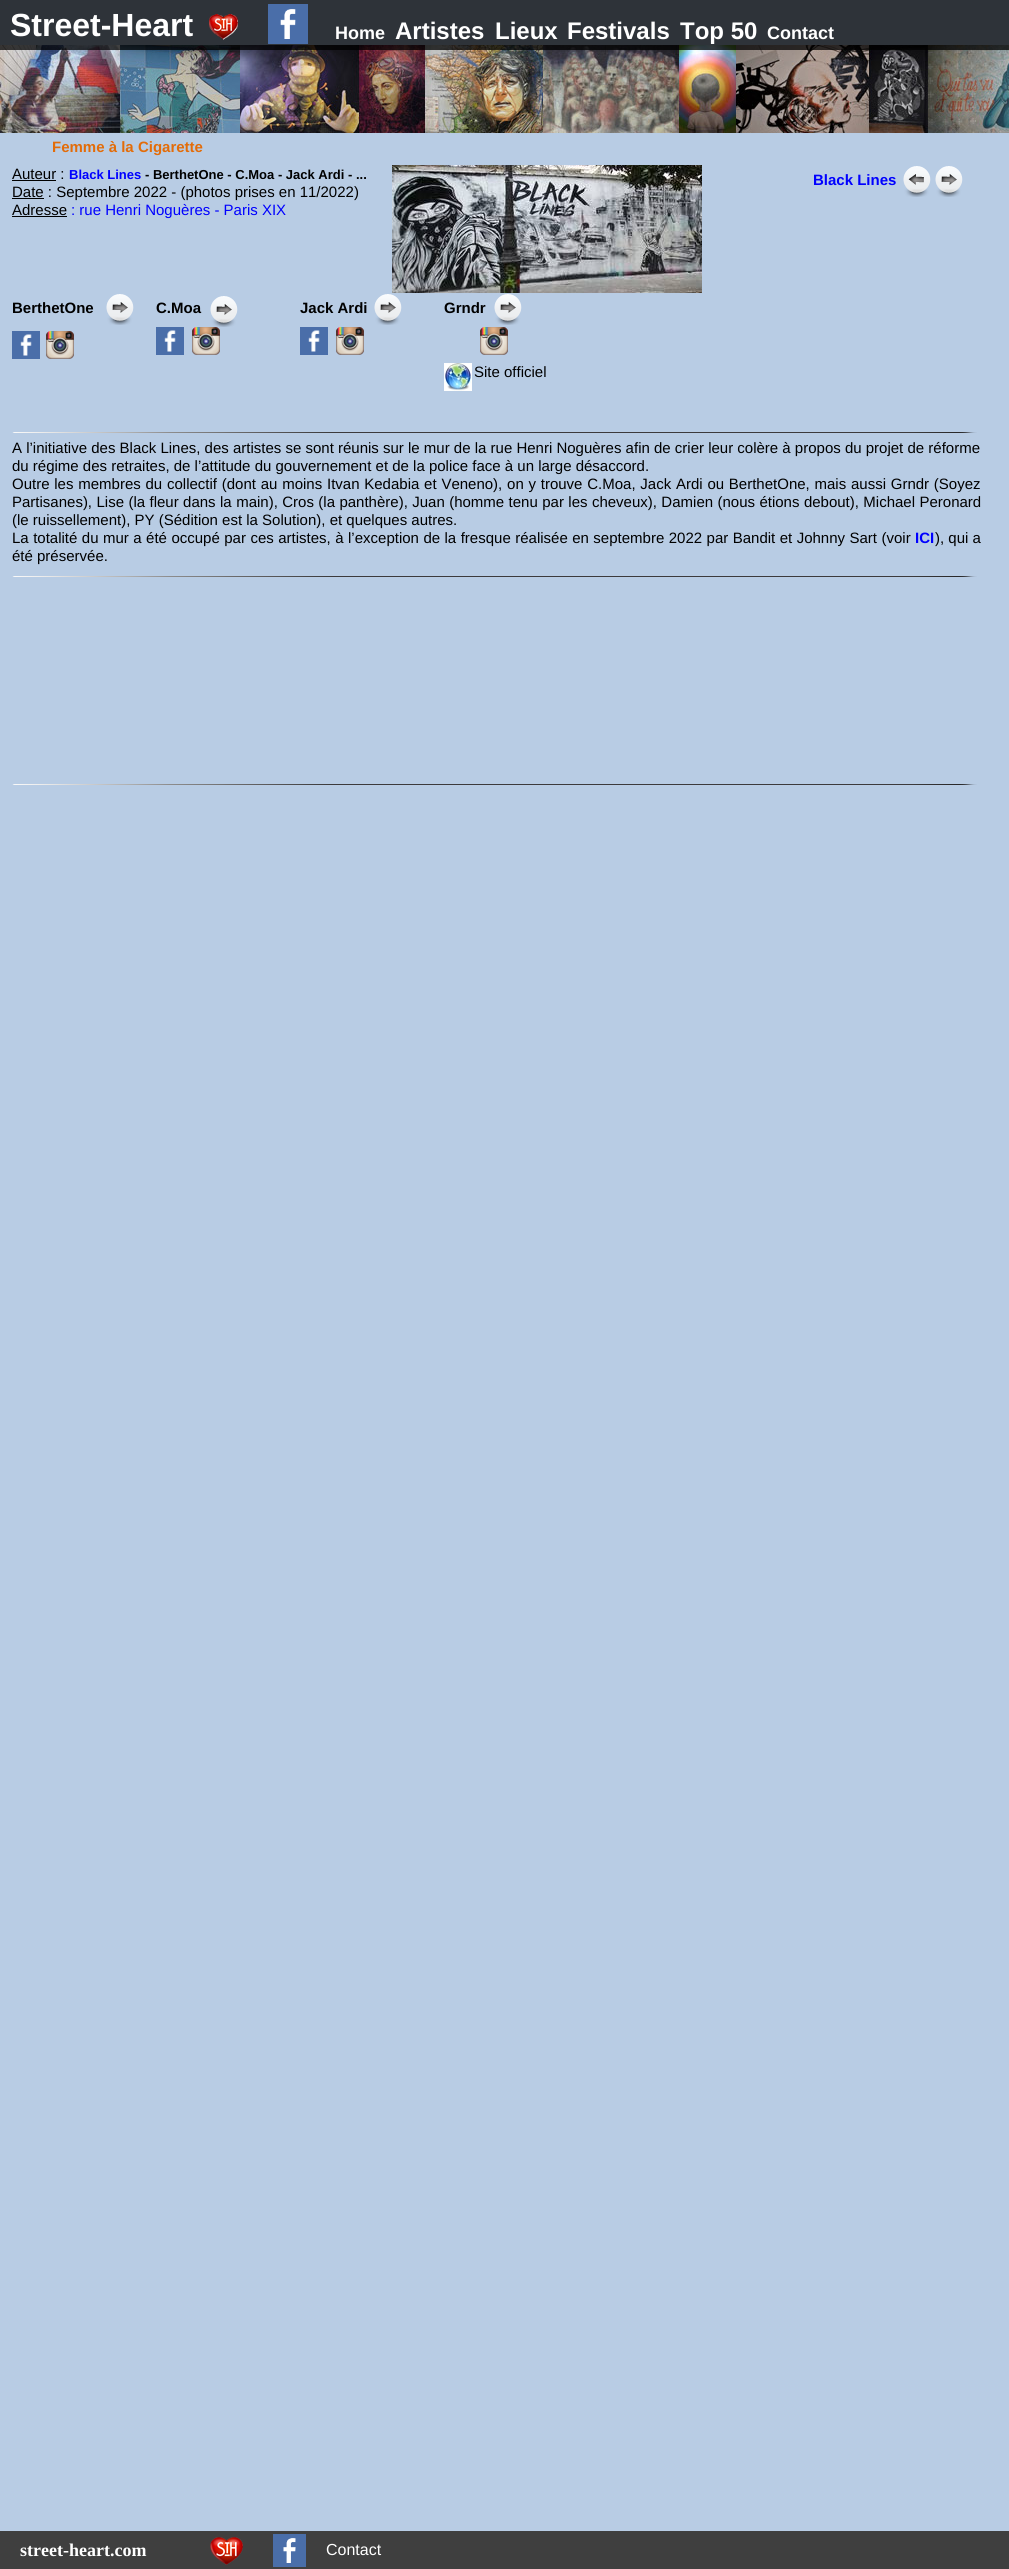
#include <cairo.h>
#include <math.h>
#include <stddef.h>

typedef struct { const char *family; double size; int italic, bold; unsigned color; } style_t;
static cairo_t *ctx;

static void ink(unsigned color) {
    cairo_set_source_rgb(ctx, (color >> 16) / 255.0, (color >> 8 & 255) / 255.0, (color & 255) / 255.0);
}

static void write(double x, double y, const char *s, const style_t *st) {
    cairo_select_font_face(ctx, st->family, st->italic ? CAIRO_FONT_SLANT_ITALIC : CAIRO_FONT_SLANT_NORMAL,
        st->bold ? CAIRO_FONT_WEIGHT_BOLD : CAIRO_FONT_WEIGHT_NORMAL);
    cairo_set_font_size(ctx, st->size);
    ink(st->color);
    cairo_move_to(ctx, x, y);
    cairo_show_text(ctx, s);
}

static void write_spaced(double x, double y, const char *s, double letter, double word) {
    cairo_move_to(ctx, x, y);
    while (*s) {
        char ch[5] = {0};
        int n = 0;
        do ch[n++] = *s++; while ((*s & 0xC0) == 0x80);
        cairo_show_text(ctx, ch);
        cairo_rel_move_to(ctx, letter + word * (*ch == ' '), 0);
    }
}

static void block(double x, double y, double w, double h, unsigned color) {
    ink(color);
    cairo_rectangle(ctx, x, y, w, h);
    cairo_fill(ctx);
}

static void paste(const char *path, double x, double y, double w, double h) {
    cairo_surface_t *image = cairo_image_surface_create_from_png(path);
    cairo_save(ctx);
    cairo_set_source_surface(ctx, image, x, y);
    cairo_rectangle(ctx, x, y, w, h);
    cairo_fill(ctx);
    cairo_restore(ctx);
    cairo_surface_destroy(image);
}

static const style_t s1 = {"Liberation Sans", 32, 0, 1, 0xffffff};
static const style_t s2 = {"Liberation Sans", 18, 0, 1, 0xffffff};
static const style_t s3 = {"Liberation Sans", 24, 0, 1, 0xffffff};
static const style_t s4 = {"Liberation Sans", 15, 0, 1, 0xe36c09};
static const style_t s5 = {"Liberation Sans", 15, 0, 0, 0x000000};
static const style_t s6 = {"Liberation Sans", 13, 0, 1, 0x0000ff};
static const style_t s7 = {"Liberation Sans", 13, 0, 1, 0x000000};
static const style_t s8 = {"Liberation Sans", 15, 0, 0, 0x0000ff};
static const style_t s9 = {"Liberation Sans", 15, 0, 1, 0x0000ff};
static const style_t s10 = {"Liberation Sans", 15, 0, 1, 0x000000};
static const style_t s11 = {"Liberation Serif", 18, 0, 1, 0xffffff};
static const style_t s12 = {"Liberation Sans", 16, 0, 0, 0xffffff};

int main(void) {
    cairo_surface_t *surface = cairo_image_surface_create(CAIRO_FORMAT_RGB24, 1009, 2569);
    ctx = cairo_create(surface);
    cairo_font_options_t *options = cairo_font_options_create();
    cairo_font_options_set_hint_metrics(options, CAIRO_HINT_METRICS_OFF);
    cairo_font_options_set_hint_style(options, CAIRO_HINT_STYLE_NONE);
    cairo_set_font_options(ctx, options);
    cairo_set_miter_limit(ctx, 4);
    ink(0xb8cce4);
    cairo_paint(ctx);
    paste("pic3.png", 0, 45, 1009, 88);
    cairo_set_source_rgba(ctx, 0, 0, 0, 0.75);
    cairo_rectangle(ctx, 0, 0, 1009, 50);
    cairo_fill(ctx);
    write(10, 36, "Street-Heart", &s1);
    paste("pic1.png", 209, 14, 29, 26);
    paste("pic2.png", 268, 4, 40, 40);
    write(335, 39, "Home", &s2);
    write(395, 39, "Artistes", &s3);
    write(495, 39, "Lieux", &s3);
    write(567, 39, "Festivals", &s3);
    write(680, 39, "Top 50", &s3);
    write(767, 39, "Contact", &s2);
    write(52, 152, "Femme à la Cigarette", &s4);
    write(12, 179, "Auteur :", &s5);
    block(12, 180, 44, 1, 0x000000);
    write(69, 179, "Black Lines", &s6);
    write(145, 179, "- BerthetOne - C.Moa - Jack Ardi - ...", &s7);
    block(12, 198, 32, 1, 0x000000);
    write(12, 197, "Date : Septembre 2022 - (photos prises en 11/2022)", &s5);
    write(12, 215, "Adresse", &s5);
    block(12, 216, 55, 1, 0x000000);
    write(71, 215, ": rue Henri Noguères - Paris XIX", &s8);
    paste("pic4.png", 392, 165, 310, 128);
    write(813, 185, "Black Lines", &s9);
    paste("pic5.png", 903, 166, 28, 31);
    paste("pic6.png", 935, 166, 28, 31);
    write(12, 313, "BerthetOne", &s10);
    paste("pic6.png", 106, 294, 28, 31);
    paste("pic7.png", 12, 331, 28, 28);
    paste("pic8.png", 46, 331, 28, 28);
    write(156, 313, "C.Moa", &s10);
    paste("pic6.png", 210, 296, 28, 31);
    paste("pic9.png", 156, 327, 28, 28);
    paste("pic8.png", 192, 327, 28, 28);
    write(300, 313, "Jack Ardi", &s10);
    paste("pic6.png", 374, 294, 28, 31);
    paste("pic7.png", 300, 327, 28, 28);
    paste("pic8.png", 336, 327, 28, 28);
    write(444, 313, "Grndr", &s10);
    paste("pic6.png", 494, 294, 28, 31);
    paste("pic8.png", 480, 327, 28, 28);
    paste("pic10.png", 444, 363, 28, 28);
    write(474, 377, "Site officiel", &s5);
    paste("pic11.png", 12, 432, 319, 1);
    block(331, 432, 582, 1, 0x3c3a3c);
    paste("pic12.png", 913, 432, 64, 1);
    write(12, 453, "A l’initiative des Black Lines, des artistes se sont réunis sur le mur de la rue Henri Noguères afin de crier leur colère à propos du projet de réforme", &s5);
    write(12, 471, "du régime des retraites, de l’attitude du gouvernement et de la police face à un large désaccord.", &s5);
    write_spaced(12, 489, "Outre les membres du collectif (dont au moins Itvan Kedabia et Veneno), on y trouve C.Moa, Jack Ardi ou BerthetOne, mais aussi Grndr (Soyez", 0, 0.6);
    write_spaced(12, 507, "Partisanes), Lise (la fleur dans la main), Cros (la panthère), Juan (homme tenu par les cheveux), Damien (nous étions debout), Michael Peronard", 0, 0.25);
    write(12, 525, "(le ruissellement), PY (Sédition est la Solution), et quelques autres.", &s5);
    write_spaced(12, 543, "La totalité du mur a été occupé par ces artistes, à l’exception de la fresque réalisée en septembre 2022 par Bandit et Johnny Sart (voir", 0, 0.3);
    write(915, 543, "ICI", &s9);
    write(935, 543, "), qui a", &s5);
    write(12, 561, "été préservée.", &s5);
    paste("pic11.png", 12, 576, 319, 1);
    block(331, 576, 582, 1, 0x3c3a3c);
    paste("pic12.png", 913, 576, 64, 1);
    paste("pic11.png", 12, 784, 319, 1);
    block(331, 784, 582, 1, 0x3c3a3c);
    paste("pic12.png", 913, 784, 64, 1);
    block(0, 2531, 1009, 38, 0x3f3f3f);
    write(20, 2556, "street-heart.com", &s11);
    paste("pic13.png", 210, 2537, 33, 28);
    paste("pic14.png", 273, 2534, 33, 33);
    write(326, 2555, "Contact", &s12);
    cairo_surface_write_to_png(surface, "screenshot.png");
    cairo_font_options_destroy(options);
    cairo_destroy(ctx);
    cairo_surface_destroy(surface);
    return 0;
}
